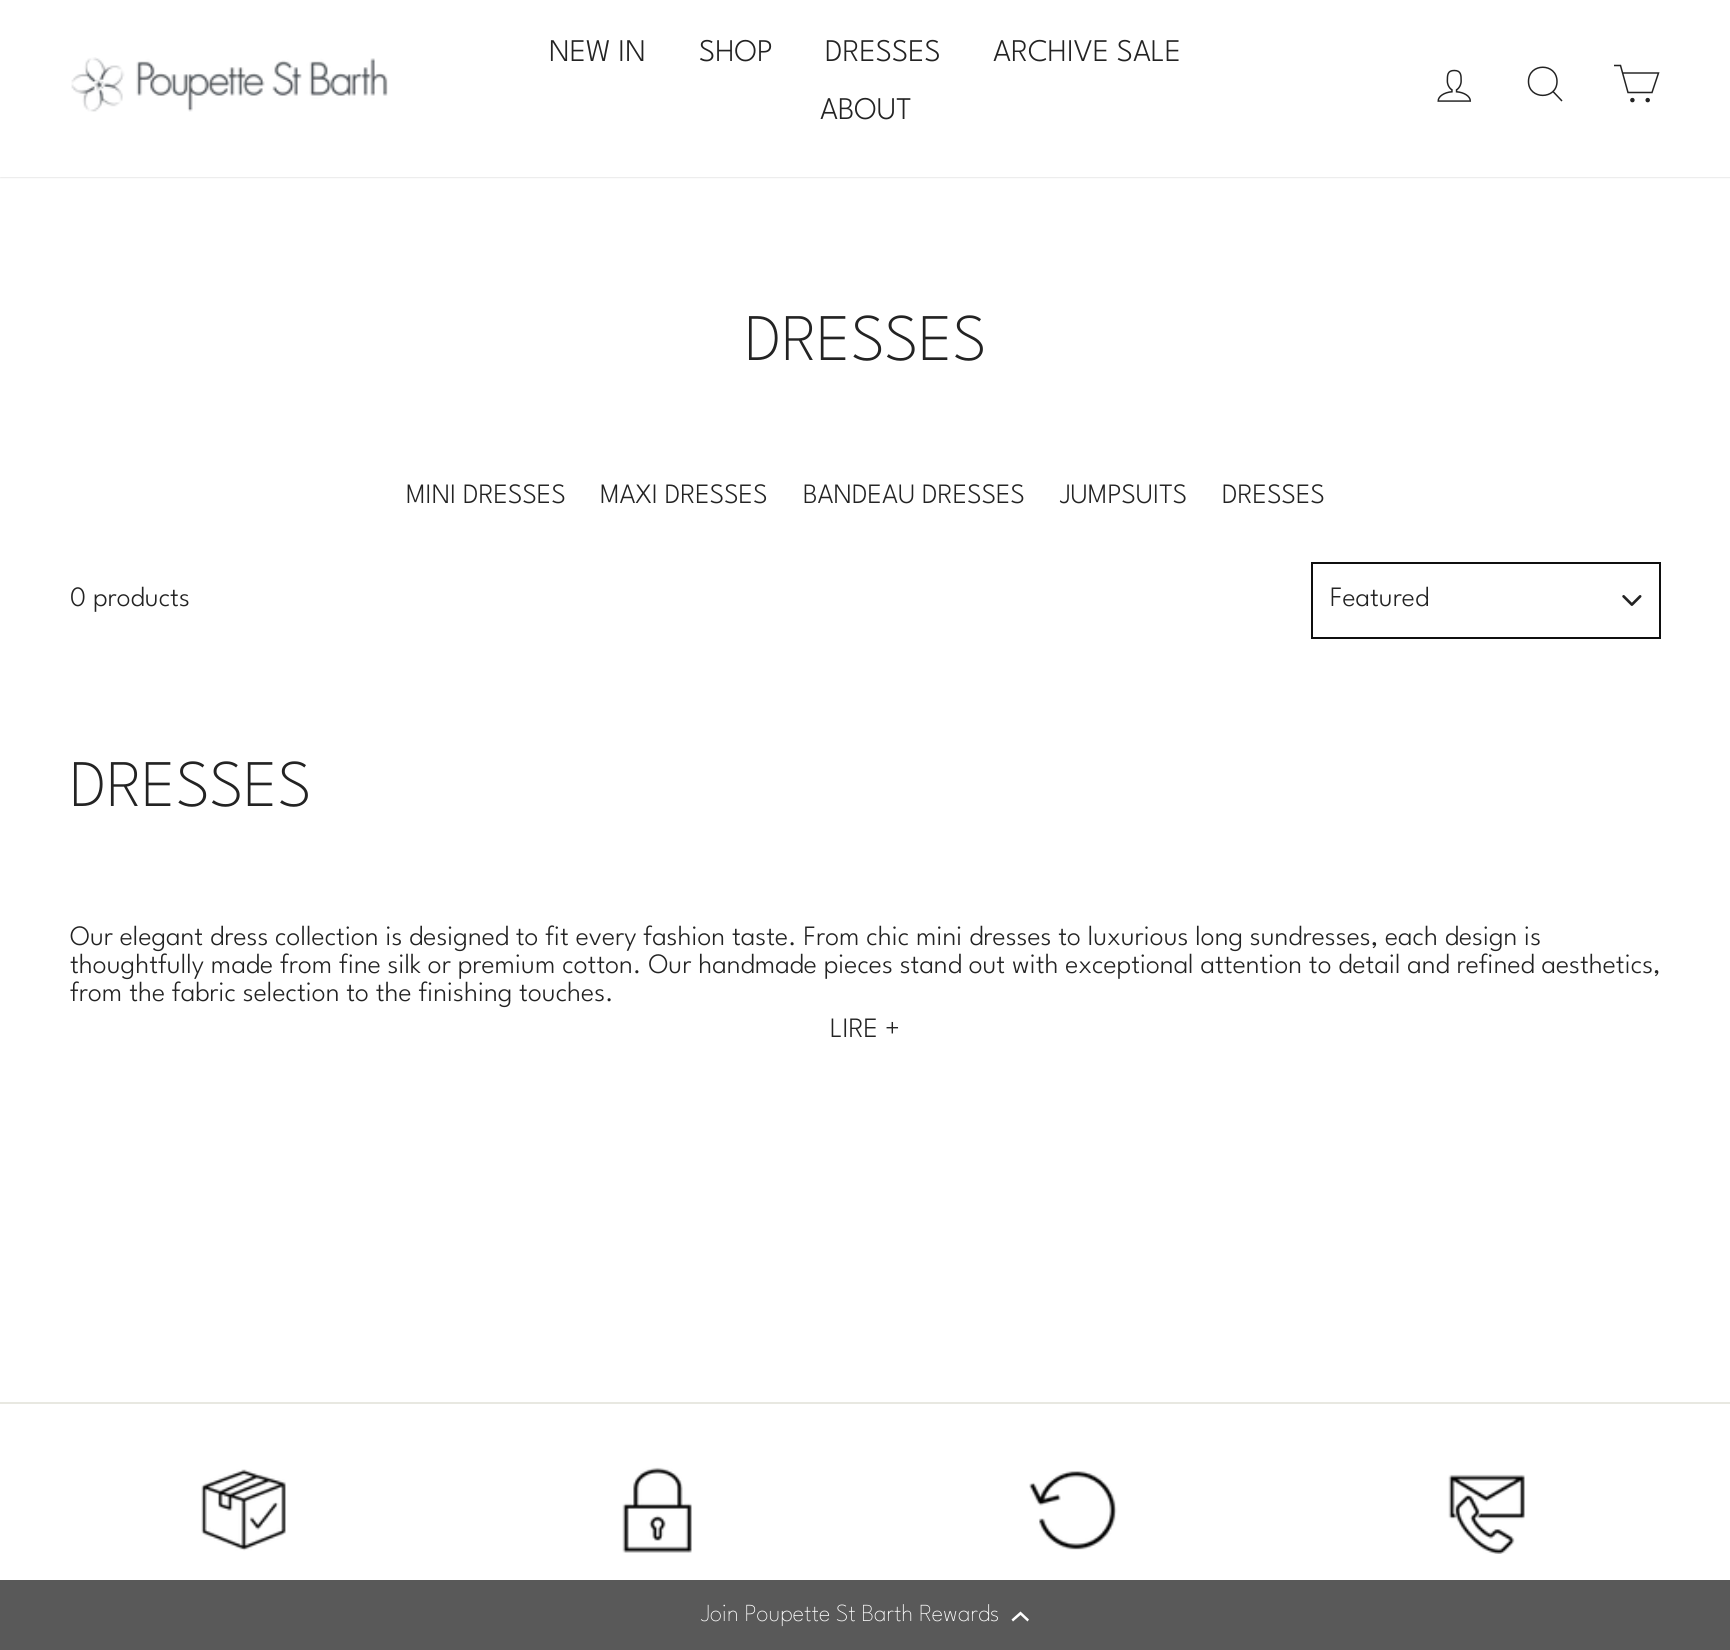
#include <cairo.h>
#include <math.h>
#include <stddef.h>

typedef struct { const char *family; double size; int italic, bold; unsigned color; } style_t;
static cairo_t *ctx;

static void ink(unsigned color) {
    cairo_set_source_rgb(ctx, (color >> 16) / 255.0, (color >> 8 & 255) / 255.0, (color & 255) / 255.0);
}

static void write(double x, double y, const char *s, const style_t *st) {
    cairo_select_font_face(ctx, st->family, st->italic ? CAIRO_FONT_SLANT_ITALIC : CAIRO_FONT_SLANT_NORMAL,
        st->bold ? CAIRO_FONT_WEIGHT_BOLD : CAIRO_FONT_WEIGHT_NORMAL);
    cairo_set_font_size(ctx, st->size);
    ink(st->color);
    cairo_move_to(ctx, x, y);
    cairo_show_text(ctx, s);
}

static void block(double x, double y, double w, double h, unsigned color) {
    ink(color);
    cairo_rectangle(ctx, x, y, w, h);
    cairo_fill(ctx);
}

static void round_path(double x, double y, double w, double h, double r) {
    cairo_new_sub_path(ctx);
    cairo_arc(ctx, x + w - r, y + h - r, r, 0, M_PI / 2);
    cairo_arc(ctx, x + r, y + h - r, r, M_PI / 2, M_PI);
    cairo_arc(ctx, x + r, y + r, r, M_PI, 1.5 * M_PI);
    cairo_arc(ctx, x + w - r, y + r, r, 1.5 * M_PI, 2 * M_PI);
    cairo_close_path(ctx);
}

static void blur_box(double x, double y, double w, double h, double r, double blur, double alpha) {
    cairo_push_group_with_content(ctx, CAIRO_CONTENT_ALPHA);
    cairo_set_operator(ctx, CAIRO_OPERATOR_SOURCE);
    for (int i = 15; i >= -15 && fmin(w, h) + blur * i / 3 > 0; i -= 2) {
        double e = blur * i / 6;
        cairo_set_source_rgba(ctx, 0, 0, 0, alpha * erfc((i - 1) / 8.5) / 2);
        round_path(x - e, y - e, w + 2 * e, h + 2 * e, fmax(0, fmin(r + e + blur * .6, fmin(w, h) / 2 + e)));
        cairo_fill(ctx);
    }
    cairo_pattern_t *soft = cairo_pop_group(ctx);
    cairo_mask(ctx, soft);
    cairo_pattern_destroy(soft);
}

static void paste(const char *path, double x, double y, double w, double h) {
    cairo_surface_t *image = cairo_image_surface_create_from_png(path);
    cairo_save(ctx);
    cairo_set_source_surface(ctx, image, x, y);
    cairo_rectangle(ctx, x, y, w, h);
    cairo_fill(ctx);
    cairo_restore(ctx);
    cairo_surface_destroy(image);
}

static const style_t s1 = {"League Spartan Light", 31.5, 0, 0, 0x232323};
static const style_t s2 = {"League Spartan ExtraLight", 66.5, 0, 0, 0x232323};
static const style_t s3 = {"League Spartan Light", 28, 0, 0, 0x232323};
static const style_t s4 = {"League Spartan Thin", 24.5, 0, 0, 0xffffff};

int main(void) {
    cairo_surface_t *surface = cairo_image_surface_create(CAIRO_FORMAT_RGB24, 1730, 1650);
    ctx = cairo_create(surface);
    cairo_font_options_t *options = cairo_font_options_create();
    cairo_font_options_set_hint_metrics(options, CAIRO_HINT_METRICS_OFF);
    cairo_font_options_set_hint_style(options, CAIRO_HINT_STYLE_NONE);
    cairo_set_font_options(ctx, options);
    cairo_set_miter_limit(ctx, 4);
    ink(0xffffff);
    cairo_paint(ctx);
    ink(0x000000);
    blur_box(0, -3, 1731, 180, 0, 1, 0.2);
    block(0, 0, 1730, 177, 0xffffff);
    paste("pic1.png", 71, 57, 317, 55);
    write(549, 61, "NEW IN", &s1);
    write(699, 61, "SHOP", &s1);
    write(825, 61, "DRESSES", &s1);
    write(993, 61, "ARCHIVE SALE", &s1);
    write(820, 119, "ABOUT", &s1);
    paste("pic2.png", 1437, 69, 35, 33);
    cairo_new_path(ctx);
    cairo_move_to(ctx, 1557, 81.5);
    cairo_curve_to(ctx, 1557, 100, 1528.5, 100, 1528.5, 81.5);
    cairo_curve_to(ctx, 1528.5, 62.5, 1557, 62.5, 1557, 81.5);
    cairo_close_path(ctx);
    cairo_move_to(ctx, 1562, 101);
    cairo_line_to(ctx, 1553, 91.5);
    cairo_set_line_width(ctx, 1.5);
    cairo_stroke(ctx);
    cairo_new_path(ctx);
    cairo_move_to(ctx, 1622.5, 73);
    cairo_line_to(ctx, 1658.5, 73);
    cairo_line_to(ctx, 1652, 92.5);
    cairo_line_to(ctx, 1628, 92.5);
    cairo_line_to(ctx, 1620.5, 65.5);
    cairo_line_to(ctx, 1614, 65.5);
    cairo_stroke(ctx);
    cairo_arc(ctx, 1632.4, 100.1, 1.5, 0, 2 * M_PI);
    cairo_fill_preserve(ctx);
    cairo_stroke(ctx);
    cairo_arc(ctx, 1647.7, 100.1, 1.5, 0, 2 * M_PI);
    cairo_fill_preserve(ctx);
    cairo_stroke(ctx);
    write(745, 360, "DRESSES", &s2);
    write(406, 503, "MINI DRESSES", &s3);
    write(600, 503, "MAXI DRESSES", &s3);
    write(803, 503, "BANDEAU DRESSES", &s3);
    write(1060, 503, "JUMPSUITS", &s3);
    write(1222, 503, "DRESSES", &s3);
    write(70, 606, "0 products", &s3);
    paste("pic3.png", 1622, 595, 20, 11);
    cairo_rectangle(ctx, 1312, 563, 348, 75);
    ink(0x0f0f0f);
    cairo_set_line_width(ctx, 2);
    cairo_stroke(ctx);
    write(1330, 606, "Featured", &s3);
    write(70, 806, "DRESSES", &s2);
    write(70, 945, "Our elegant dress collection is designed to fit every fashion taste. From chic mini dresses to luxurious long sundresses, each design is", &s3);
    write(70, 973, "thoughtfully made from fine silk or premium cotton. Our handmade pieces stand out with exceptional attention to detail and refined aesthetics,", &s3);
    write(70, 1001, "from the fabric selection to the finishing touches.", &s3);
    write(830, 1037, "LIRE +", &s3);
    block(0, 1402, 1730, 2, 0xe8e8e1);
    paste("pic4.png", 201, 1469, 85, 82);
    paste("pic5.png", 622, 1467, 70, 86);
    paste("pic6.png", 1029, 1471, 88, 79);
    paste("pic7.png", 1448, 1474, 77, 80);
    block(0, 1580, 1730, 70, 0x595959);
    write(701, 1621, "Join Poupette St Barth Rewards", &s4);
    cairo_new_path(ctx);
    cairo_move_to(ctx, 1020.5, 1615);
    cairo_line_to(ctx, 1013, 1621.5);
    cairo_line_to(ctx, 1011.5, 1619.5);
    cairo_line_to(ctx, 1020.5, 1611.5);
    cairo_line_to(ctx, 1029, 1619.5);
    cairo_line_to(ctx, 1027.5, 1621.5);
    cairo_close_path(ctx);
    cairo_fill(ctx);
    cairo_surface_write_to_png(surface, "screenshot.png");
    cairo_font_options_destroy(options);
    cairo_destroy(ctx);
    cairo_surface_destroy(surface);
    return 0;
}
